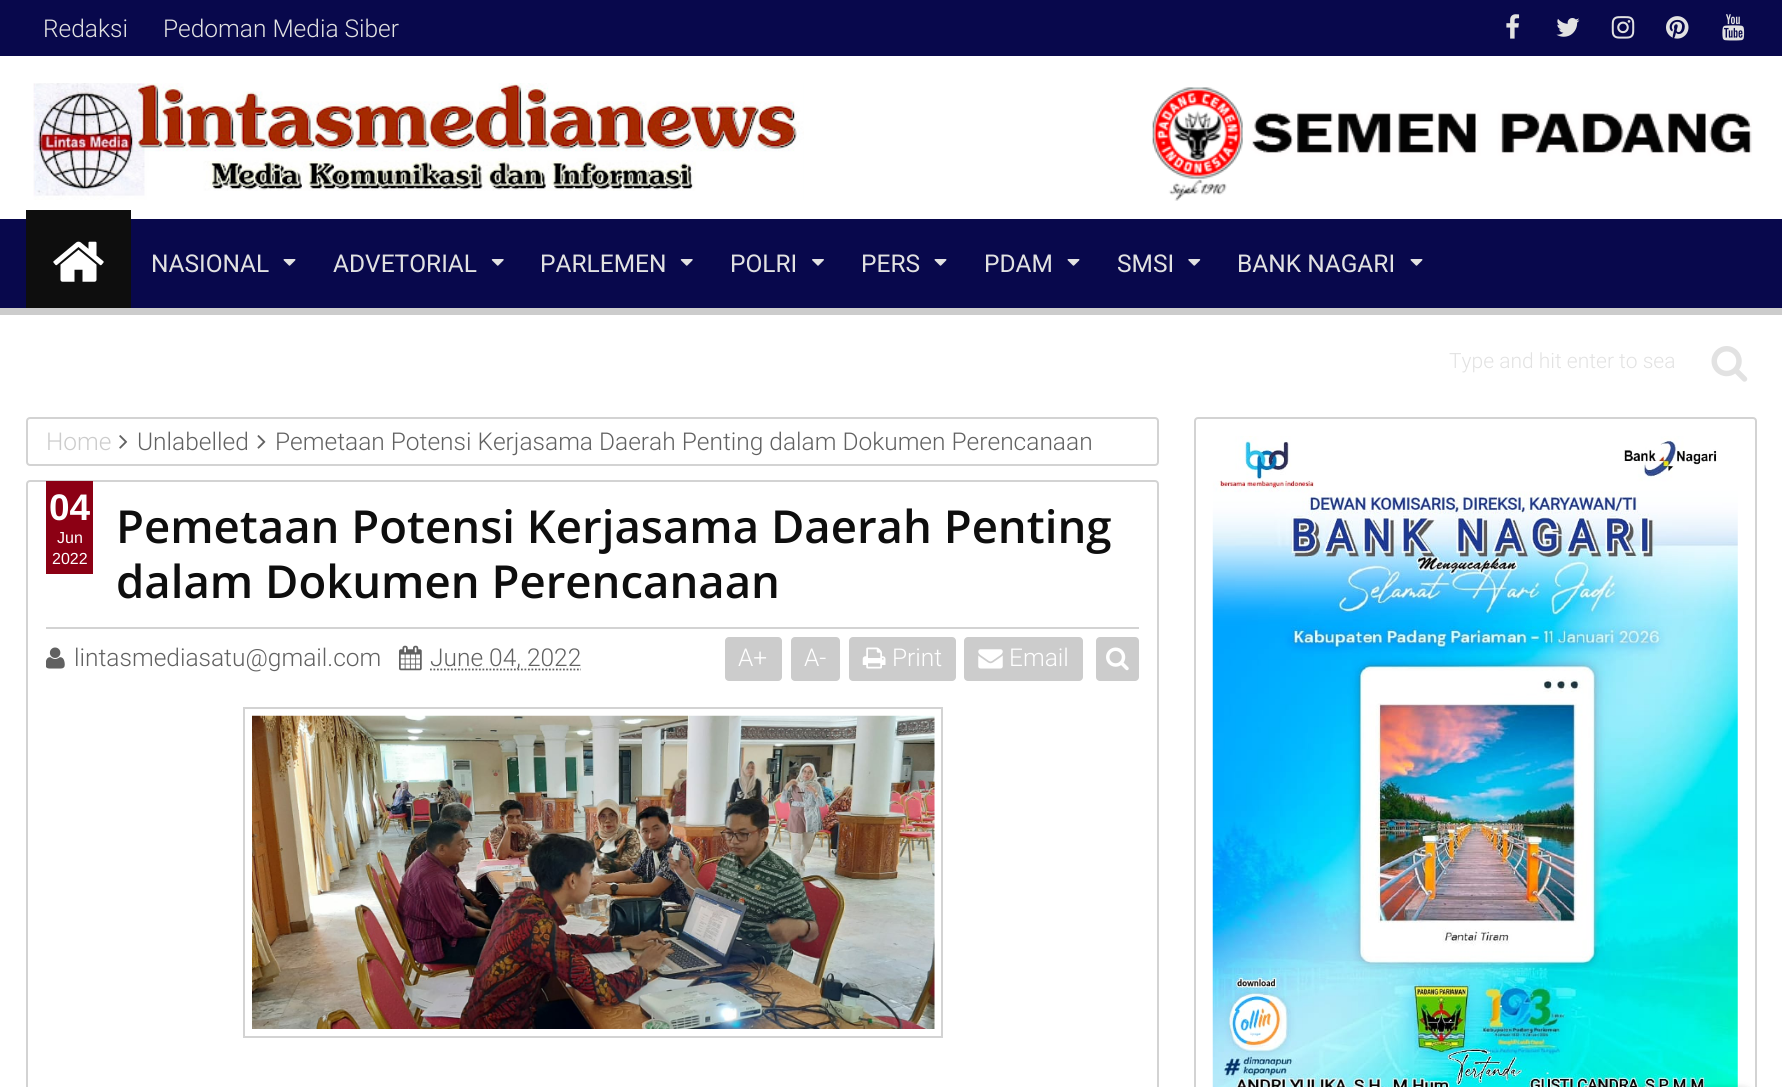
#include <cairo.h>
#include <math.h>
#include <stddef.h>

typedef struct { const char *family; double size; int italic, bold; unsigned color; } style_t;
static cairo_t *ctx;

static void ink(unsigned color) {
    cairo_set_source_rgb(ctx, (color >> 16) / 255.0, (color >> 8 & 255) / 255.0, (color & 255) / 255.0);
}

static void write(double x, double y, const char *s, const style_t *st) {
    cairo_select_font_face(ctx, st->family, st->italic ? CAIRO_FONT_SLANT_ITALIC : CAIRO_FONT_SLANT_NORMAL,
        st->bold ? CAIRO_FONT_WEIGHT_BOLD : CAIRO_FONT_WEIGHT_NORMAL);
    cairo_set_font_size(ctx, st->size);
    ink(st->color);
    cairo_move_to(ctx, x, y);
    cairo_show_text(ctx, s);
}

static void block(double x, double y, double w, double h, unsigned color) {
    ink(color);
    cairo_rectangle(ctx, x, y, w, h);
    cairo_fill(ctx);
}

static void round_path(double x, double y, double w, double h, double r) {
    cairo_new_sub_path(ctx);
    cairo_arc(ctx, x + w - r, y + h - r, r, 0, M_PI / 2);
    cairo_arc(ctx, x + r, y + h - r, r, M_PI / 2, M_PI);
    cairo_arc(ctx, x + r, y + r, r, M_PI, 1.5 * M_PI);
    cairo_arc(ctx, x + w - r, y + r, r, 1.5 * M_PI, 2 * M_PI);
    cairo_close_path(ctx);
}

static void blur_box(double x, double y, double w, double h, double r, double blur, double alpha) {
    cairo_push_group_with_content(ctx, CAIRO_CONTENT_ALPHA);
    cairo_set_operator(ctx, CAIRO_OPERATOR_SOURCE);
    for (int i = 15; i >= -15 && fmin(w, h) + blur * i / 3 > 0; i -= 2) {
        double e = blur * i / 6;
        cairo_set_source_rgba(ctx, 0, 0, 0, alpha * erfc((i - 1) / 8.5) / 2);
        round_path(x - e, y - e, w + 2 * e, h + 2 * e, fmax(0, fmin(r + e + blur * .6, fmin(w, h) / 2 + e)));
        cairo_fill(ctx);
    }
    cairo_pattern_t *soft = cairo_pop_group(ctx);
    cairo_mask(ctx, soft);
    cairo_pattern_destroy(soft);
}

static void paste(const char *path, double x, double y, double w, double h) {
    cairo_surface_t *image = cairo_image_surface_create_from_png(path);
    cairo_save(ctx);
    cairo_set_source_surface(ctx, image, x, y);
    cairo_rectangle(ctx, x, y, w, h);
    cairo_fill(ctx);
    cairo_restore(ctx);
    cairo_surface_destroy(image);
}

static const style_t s1 = {"Roboto Light", 24.5, 0, 0, 0xe2e2e2};
static const style_t s2 = {"Roboto", 24.5, 0, 0, 0xe2e2e2};
static const style_t s3 = {"Roboto Light", 21, 0, 0, 0xe2e2e2};
static const style_t s4 = {"Roboto Light", 24.5, 0, 0, 0xcccccc};
static const style_t s5 = {"Roboto Light", 24.5, 0, 0, 0x616161};
static const style_t s6 = {"Liberation Sans", 37, 0, 1, 0xffffff};
static const style_t s7 = {"Liberation Sans", 16, 0, 0, 0xffffff};
static const style_t s8 = {"Open Sans SemiBold", 45.5, 0, 0, 0x0e0e0e};
static const style_t s9 = {"Roboto Light", 24.5, 0, 0, 0xffffff};

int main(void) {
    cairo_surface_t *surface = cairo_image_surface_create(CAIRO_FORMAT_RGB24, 1782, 1087);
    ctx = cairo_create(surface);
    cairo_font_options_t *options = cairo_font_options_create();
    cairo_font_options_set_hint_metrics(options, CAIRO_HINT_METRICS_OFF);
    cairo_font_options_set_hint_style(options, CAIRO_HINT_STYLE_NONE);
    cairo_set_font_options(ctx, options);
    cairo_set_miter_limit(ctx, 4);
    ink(0xffffff);
    cairo_paint(ctx);
    block(0, 0, 1782, 56, 0x08084c);
    write(43, 37, "Redaksi", &s1);
    write(163, 37, "Pedoman Media Siber", &s1);
    paste("pic1.png", 1506, 14, 14, 25);
    paste("pic2.png", 1556, 18, 24, 19);
    paste("pic3.png", 1611, 16, 24, 23);
    paste("pic4.png", 1666, 16, 23, 23);
    paste("pic5.png", 1722, 14, 23, 27);
    paste("pic6.png", 33, 83, 771, 117);
    paste("pic7.png", 1152, 87, 600, 114);
    block(0, 219, 1782, 89, 0x08084c);
    block(0, 308, 1782, 7, 0xcccccc);
    block(26, 210, 105, 98, 0x0e0e0e);
    paste("pic8.png", 53, 241, 51, 41);
    write(151, 272, "NASIONAL", &s2);
    paste("pic9.png", 283, 259, 13, 7);
    write(333, 272, "ADVETORIAL", &s2);
    paste("pic10.png", 491, 259, 13, 7);
    write(540, 272, "PARLEMEN", &s2);
    paste("pic10.png", 680, 259, 13, 7);
    write(730, 272, "POLRI", &s2);
    paste("pic11.png", 812, 259, 12, 7);
    write(861, 272, "PERS", &s2);
    paste("pic9.png", 934, 259, 13, 7);
    write(984, 272, "PDAM", &s2);
    paste("pic9.png", 1067, 259, 13, 7);
    write(1117, 272, "SMSI", &s2);
    paste("pic12.png", 1188, 259, 13, 7);
    write(1237, 272, "BANK NAGARI", &s2);
    paste("pic9.png", 1410, 259, 13, 7);
    write(1449, 368, "Type and hit enter to sea", &s3);
    paste("pic13.png", 1711, 346, 37, 36);
    round_path(27, 418, 1131, 47, 3);
    ink(0xd3d3d3);
    cairo_stroke(ctx);
    write(46, 450, "Home", &s4);
    paste("pic14.png", 119, 435, 9, 14);
    write(137, 450, "Unlabelled", &s5);
    paste("pic15.png", 257, 435, 9, 14);
    write(275, 450, "Pemetaan Potensi Kerjasama Daerah Penting dalam Dokumen Perencanaan", &s5);
    round_path(27, 481, 1131, 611, 3);
    ink(0xd3d3d3);
    cairo_stroke(ctx);
    block(46, 481, 47, 93, 0x8c0014);
    write(49, 520, "04", &s6);
    write(57, 543, "Jun", &s7);
    write(52, 564, "2022", &s7);
    block(46, 627, 1093, 2, 0xd3d3d3);
    write(116, 543, "Pemetaan Potensi Kerjasama Daerah Penting", &s8);
    write(116, 598, "dalam Dokumen Perencanaan", &s8);
    paste("pic16.png", 46, 647, 19, 22);
    write(74, 666, "lintasmediasatu@gmail.com", &s5);
    paste("pic17.png", 399, 645, 23, 26);
    cairo_new_path(ctx);
    cairo_move_to(ctx, 430, 669.5);
    cairo_line_to(ctx, 581, 669.5);
    cairo_set_line_width(ctx, 1.8);
    cairo_set_dash(ctx, (double[]){1.75, 1.75}, 2, 0);
    cairo_stroke(ctx);
    write(430, 666, "June 04, 2022", &s5);
    ink(0xcccccc);
    round_path(725, 637, 57, 44, 4);
    cairo_fill(ctx);
    write(738, 666, "A+", &s9);
    ink(0xcccccc);
    round_path(791, 637, 49, 44, 4);
    cairo_fill(ctx);
    write(804, 666, "A-", &s9);
    ink(0xcccccc);
    round_path(849, 637, 107, 44, 4);
    cairo_fill(ctx);
    paste("pic18.png", 862, 647, 24, 22);
    write(892, 666, "Print", &s9);
    ink(0xcccccc);
    round_path(964, 637, 119, 44, 4);
    cairo_fill(ctx);
    paste("pic19.png", 978, 649, 25, 20);
    write(1009, 666, "Email", &s9);
    ink(0xcccccc);
    round_path(1096, 637, 43, 44, 4);
    cairo_fill(ctx);
    paste("pic20.png", 1106, 647, 23, 24);
    cairo_rectangle(ctx, 244, 708, 698, 329);
    ink(0xd3d3d3);
    cairo_set_line_width(ctx, 2);
    cairo_set_dash(ctx, NULL, 0, 0);
    cairo_stroke(ctx);
    paste("pic21.png", 252, 715, 683, 314);
    round_path(1195, 418, 561, 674, 3);
    cairo_stroke(ctx);
    paste("pic22.png", 1212, 436, 526, 651);
    ink(0x000000);
    blur_box(1587, 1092, 74, 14, 5, 4.5, 0.5);
    blur_box(1675, 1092, 73, 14, 5, 4.5, 0.5);
    cairo_surface_write_to_png(surface, "screenshot.png");
    cairo_font_options_destroy(options);
    cairo_destroy(ctx);
    cairo_surface_destroy(surface);
    return 0;
}
